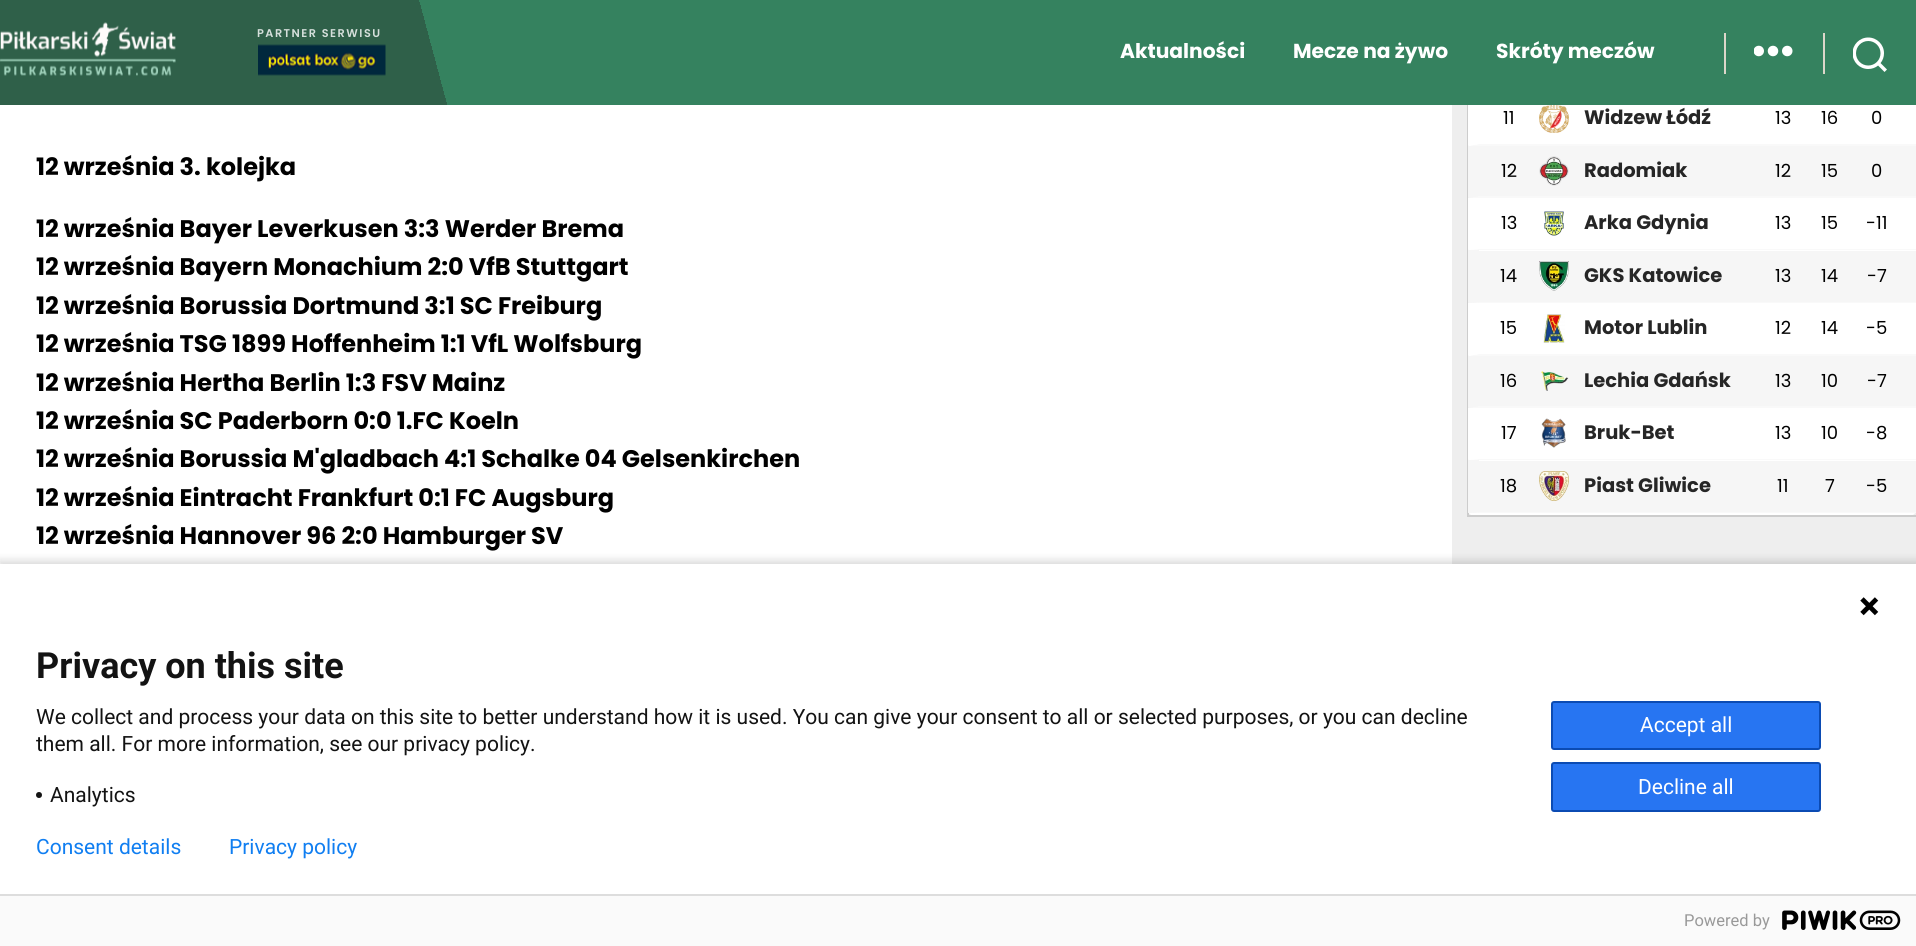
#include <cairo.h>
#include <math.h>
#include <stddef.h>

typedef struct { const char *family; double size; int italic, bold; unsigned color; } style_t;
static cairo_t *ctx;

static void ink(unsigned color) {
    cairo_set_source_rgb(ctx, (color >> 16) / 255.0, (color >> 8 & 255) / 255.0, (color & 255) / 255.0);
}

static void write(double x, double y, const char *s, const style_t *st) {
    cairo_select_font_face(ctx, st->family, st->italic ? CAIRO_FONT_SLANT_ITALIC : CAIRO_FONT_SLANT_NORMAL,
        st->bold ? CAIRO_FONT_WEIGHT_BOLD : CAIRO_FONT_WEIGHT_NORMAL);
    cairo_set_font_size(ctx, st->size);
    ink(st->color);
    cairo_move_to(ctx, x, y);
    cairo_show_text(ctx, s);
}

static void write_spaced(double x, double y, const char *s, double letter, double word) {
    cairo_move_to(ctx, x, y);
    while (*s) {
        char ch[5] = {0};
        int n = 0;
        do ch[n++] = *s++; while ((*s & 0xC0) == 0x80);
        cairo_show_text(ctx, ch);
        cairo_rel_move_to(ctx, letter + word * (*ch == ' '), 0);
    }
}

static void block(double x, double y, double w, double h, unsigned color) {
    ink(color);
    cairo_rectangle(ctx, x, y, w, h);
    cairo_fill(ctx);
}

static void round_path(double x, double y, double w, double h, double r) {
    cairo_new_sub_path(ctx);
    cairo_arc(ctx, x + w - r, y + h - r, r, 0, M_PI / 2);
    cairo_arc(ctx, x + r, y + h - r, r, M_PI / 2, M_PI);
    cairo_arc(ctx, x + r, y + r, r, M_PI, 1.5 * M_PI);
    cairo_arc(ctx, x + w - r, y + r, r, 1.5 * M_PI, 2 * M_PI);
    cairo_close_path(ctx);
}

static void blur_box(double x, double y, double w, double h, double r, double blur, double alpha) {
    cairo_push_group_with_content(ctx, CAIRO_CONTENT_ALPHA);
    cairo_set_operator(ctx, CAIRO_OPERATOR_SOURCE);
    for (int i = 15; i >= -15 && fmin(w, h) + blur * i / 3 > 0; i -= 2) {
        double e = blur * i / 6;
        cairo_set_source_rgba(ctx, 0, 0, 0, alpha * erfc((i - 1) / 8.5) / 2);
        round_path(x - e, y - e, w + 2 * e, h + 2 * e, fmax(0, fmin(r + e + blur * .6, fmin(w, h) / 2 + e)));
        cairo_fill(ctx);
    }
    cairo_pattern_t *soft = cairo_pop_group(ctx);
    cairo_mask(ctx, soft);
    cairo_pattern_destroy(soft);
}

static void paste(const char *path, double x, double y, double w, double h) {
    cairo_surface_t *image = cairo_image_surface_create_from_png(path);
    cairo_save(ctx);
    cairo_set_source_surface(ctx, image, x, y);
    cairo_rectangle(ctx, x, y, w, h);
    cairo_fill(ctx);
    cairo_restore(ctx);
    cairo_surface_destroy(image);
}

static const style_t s1 = {"Poppins", 20.25, 0, 1, 0xffffff};
static const style_t s2 = {"Poppins", 24, 0, 1, 0x000000};
static const style_t s3 = {"Poppins", 18, 0, 0, 0x000000};
static const style_t s4 = {"Poppins", 19.5, 0, 1, 0x262626};
static const style_t s5 = {"Roboto", 36, 0, 1, 0x131313};
static const style_t s6 = {"Roboto", 21, 0, 0, 0x131313};
static const style_t s7 = {"Roboto", 21, 0, 0, 0xffffff};
static const style_t s8 = {"Roboto", 21, 0, 0, 0x107ef1};
static const style_t s9 = {"Roboto", 16.5, 0, 0, 0x999999};

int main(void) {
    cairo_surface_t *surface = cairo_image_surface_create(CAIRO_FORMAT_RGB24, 1916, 946);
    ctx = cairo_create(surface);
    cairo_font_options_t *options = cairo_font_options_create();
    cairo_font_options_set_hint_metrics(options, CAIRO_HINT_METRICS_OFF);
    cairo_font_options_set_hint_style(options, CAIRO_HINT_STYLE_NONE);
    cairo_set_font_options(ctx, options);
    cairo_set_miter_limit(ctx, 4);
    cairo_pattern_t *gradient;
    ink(0xeeeeee);
    cairo_paint(ctx);
    ink(0xffffff);
    round_path(1467, -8, 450, 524, 8);
    cairo_fill(ctx);
    block(1467, 515, 449, 2, 0xcccccc);
    block(1467, 105, 2, 411, 0xcccccc);
    ink(0xf9f9f9);
    cairo_new_path(ctx);
    cairo_move_to(ctx, 1916, 146);
    cairo_line_to(ctx, 1468, 146);
    cairo_line_to(ctx, 1479, 144);
    cairo_line_to(ctx, 1916, 144);
    cairo_close_path(ctx);
    cairo_fill(ctx);
    ink(0xffffff);
    cairo_new_path(ctx);
    cairo_move_to(ctx, 1468, 146);
    cairo_line_to(ctx, 1468, 93);
    cairo_line_to(ctx, 1479, 93);
    cairo_line_to(ctx, 1479, 144);
    cairo_close_path(ctx);
    cairo_fill(ctx);
    gradient = cairo_pattern_create_linear(51, 296, 1866, -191);
    cairo_pattern_add_color_stop_rgba(gradient, 0.23, 0.184, 0.376, 0.286, 1);
    cairo_pattern_add_color_stop_rgba(gradient, 0.23, 0.208, 0.51, 0.373, 1);
    cairo_set_source(ctx, gradient);
    cairo_pattern_destroy(gradient);
    cairo_rectangle(ctx, 0, 0, 1916, 105);
    cairo_fill(ctx);
    paste("pic1.png", 0, 22, 176, 54);
    cairo_select_font_face(ctx, "Poppins SemiBold", CAIRO_FONT_SLANT_NORMAL, CAIRO_FONT_WEIGHT_NORMAL);
    cairo_set_font_size(ctx, 11.25);
    ink(0xd5dfdb);
    write_spaced(257, 37, "PARTNER SERWISU", 1.5, 0);
    paste("pic2.png", 258, 44, 128, 32);
    write(1120, 58, "Aktualności", &s1);
    write(1293, 58, "Mecze na żywo", &s1);
    write(1496, 58, "Skróty meczów", &s1);
    block(1724, 33, 2, 41, 0xdcd7ca);
    paste("pic3.png", 1754, 45, 39, 12);
    block(1823, 33, 2, 41, 0xdcd7ca);
    paste("pic4.png", 1853, 37, 34, 35);
    block(0, 105, 1452, 459, 0xffffff);
    write(36, 175, "12 września 3. kolejka", &s2);
    write(36, 237, "12 września Bayer Leverkusen 3:3 Werder Brema", &s2);
    write(36, 275, "12 września Bayern Monachium 2:0 VfB Stuttgart", &s2);
    write(36, 314, "12 września Borussia Dortmund 3:1 SC Freiburg", &s2);
    write(36, 352, "12 września TSG 1899 Hoffenheim 1:1 VfL Wolfsburg", &s2);
    write(36, 391, "12 września Hertha Berlin 1:3 FSV Mainz", &s2);
    write(36, 429, "12 września SC Paderborn 0:0 1.FC Koeln", &s2);
    write(36, 467, "12 września Borussia M'gladbach 4:1 Schalke 04 Gelsenkirchen", &s2);
    write(36, 506, "12 września Eintracht Frankfurt 0:1 FC Augsburg", &s2);
    write(36, 544, "12 września Hannover 96 2:0 Hamburger SV", &s2);
    write(1503, 124, "11", &s3);
    paste("pic5.png", 1539, 105, 30, 28);
    write(1584, 124, "Widzew Łódź", &s4);
    write(1775, 124, "13", &s3);
    write(1821, 124, "16", &s3);
    write(1871, 124, "0", &s3);
    block(1469, 146, 447, 52, 0xf6f6f6);
    ink(0xf9f9f9);
    cairo_new_path(ctx);
    cairo_move_to(ctx, 1916, 198);
    cairo_line_to(ctx, 1468, 198);
    cairo_line_to(ctx, 1479, 196);
    cairo_line_to(ctx, 1916, 196);
    cairo_close_path(ctx);
    cairo_fill(ctx);
    ink(0xf6f6f6);
    cairo_new_path(ctx);
    cairo_move_to(ctx, 1468, 198);
    cairo_line_to(ctx, 1468, 146);
    cairo_line_to(ctx, 1479, 146);
    cairo_line_to(ctx, 1479, 196);
    cairo_close_path(ctx);
    cairo_fill(ctx);
    write(1501, 177, "12", &s3);
    paste("pic6.png", 1539, 156, 30, 30);
    write(1584, 177, "Radomiak", &s4);
    write(1775, 177, "12", &s3);
    write(1821, 177, "15", &s3);
    write(1871, 177, "0", &s3);
    ink(0xf9f9f9);
    cairo_new_path(ctx);
    cairo_move_to(ctx, 1916, 250);
    cairo_line_to(ctx, 1468, 250);
    cairo_line_to(ctx, 1479, 249);
    cairo_line_to(ctx, 1916, 249);
    cairo_close_path(ctx);
    cairo_fill(ctx);
    ink(0xffffff);
    cairo_new_path(ctx);
    cairo_move_to(ctx, 1468, 250);
    cairo_line_to(ctx, 1468, 198);
    cairo_line_to(ctx, 1479, 198);
    cairo_line_to(ctx, 1479, 249);
    cairo_close_path(ctx);
    cairo_fill(ctx);
    write(1501, 229, "13", &s3);
    paste("pic7.png", 1544, 211, 20, 25);
    write(1584, 229, "Arka Gdynia", &s4);
    write(1775, 229, "13", &s3);
    write(1821, 229, "15", &s3);
    write(1866, 229, "-11", &s3);
    block(1469, 251, 447, 52, 0xf6f6f6);
    ink(0xf9f9f9);
    cairo_new_path(ctx);
    cairo_move_to(ctx, 1916, 303);
    cairo_line_to(ctx, 1468, 303);
    cairo_line_to(ctx, 1479, 302);
    cairo_line_to(ctx, 1916, 302);
    cairo_close_path(ctx);
    cairo_fill(ctx);
    ink(0xf6f6f6);
    cairo_new_path(ctx);
    cairo_move_to(ctx, 1468, 303);
    cairo_line_to(ctx, 1468, 250);
    cairo_line_to(ctx, 1479, 250);
    cairo_line_to(ctx, 1479, 302);
    cairo_close_path(ctx);
    cairo_fill(ctx);
    write(1500, 282, "14", &s3);
    paste("pic8.png", 1539, 261, 30, 30);
    write(1584, 282, "GKS Katowice", &s4);
    write(1775, 282, "13", &s3);
    write(1821, 282, "14", &s3);
    write(1867, 282, "-7", &s3);
    ink(0xf9f9f9);
    cairo_new_path(ctx);
    cairo_move_to(ctx, 1916, 356);
    cairo_line_to(ctx, 1468, 356);
    cairo_line_to(ctx, 1479, 354);
    cairo_line_to(ctx, 1916, 354);
    cairo_close_path(ctx);
    cairo_fill(ctx);
    ink(0xffffff);
    cairo_new_path(ctx);
    cairo_move_to(ctx, 1468, 356);
    cairo_line_to(ctx, 1468, 303);
    cairo_line_to(ctx, 1479, 303);
    cairo_line_to(ctx, 1479, 354);
    cairo_close_path(ctx);
    cairo_fill(ctx);
    write(1500, 334, "15", &s3);
    paste("pic9.png", 1543, 314, 22, 29);
    write(1584, 334, "Motor Lublin", &s4);
    write(1775, 334, "12", &s3);
    write(1821, 334, "14", &s3);
    write(1866, 334, "-5", &s3);
    block(1469, 356, 447, 52, 0xf6f6f6);
    ink(0xf9f9f9);
    cairo_new_path(ctx);
    cairo_move_to(ctx, 1916, 408);
    cairo_line_to(ctx, 1468, 408);
    cairo_line_to(ctx, 1479, 406);
    cairo_line_to(ctx, 1916, 406);
    cairo_close_path(ctx);
    cairo_fill(ctx);
    ink(0xf6f6f6);
    cairo_new_path(ctx);
    cairo_move_to(ctx, 1468, 408);
    cairo_line_to(ctx, 1468, 356);
    cairo_line_to(ctx, 1479, 356);
    cairo_line_to(ctx, 1479, 406);
    cairo_close_path(ctx);
    cairo_fill(ctx);
    write(1500, 387, "16", &s3);
    paste("pic10.png", 1541, 371, 28, 20);
    write(1584, 387, "Lechia Gdańsk", &s4);
    write(1775, 387, "13", &s3);
    write(1821, 387, "10", &s3);
    write(1867, 387, "-7", &s3);
    ink(0xf9f9f9);
    cairo_new_path(ctx);
    cairo_move_to(ctx, 1916, 460);
    cairo_line_to(ctx, 1468, 460);
    cairo_line_to(ctx, 1479, 459);
    cairo_line_to(ctx, 1916, 459);
    cairo_close_path(ctx);
    cairo_fill(ctx);
    ink(0xffffff);
    cairo_new_path(ctx);
    cairo_move_to(ctx, 1468, 460);
    cairo_line_to(ctx, 1468, 408);
    cairo_line_to(ctx, 1479, 408);
    cairo_line_to(ctx, 1479, 459);
    cairo_close_path(ctx);
    cairo_fill(ctx);
    write(1501, 439, "17", &s3);
    paste("pic11.png", 1541, 418, 25, 30);
    write(1584, 439, "Bruk-Bet", &s4);
    write(1775, 439, "13", &s3);
    write(1821, 439, "10", &s3);
    write(1866, 439, "-8", &s3);
    block(1469, 461, 447, 52, 0xf6f6f6);
    ink(0xf9f9f9);
    cairo_new_path(ctx);
    cairo_move_to(ctx, 1916, 513);
    cairo_line_to(ctx, 1468, 513);
    cairo_line_to(ctx, 1479, 512);
    cairo_line_to(ctx, 1916, 512);
    cairo_close_path(ctx);
    cairo_fill(ctx);
    ink(0xf6f6f6);
    cairo_new_path(ctx);
    cairo_move_to(ctx, 1468, 513);
    cairo_line_to(ctx, 1468, 460);
    cairo_line_to(ctx, 1479, 460);
    cairo_line_to(ctx, 1479, 512);
    cairo_close_path(ctx);
    cairo_fill(ctx);
    write(1500, 492, "18", &s3);
    paste("pic12.png", 1539, 471, 30, 30);
    write(1584, 492, "Piast Gliwice", &s4);
    write(1777, 492, "11", &s3);
    write(1825, 492, "7", &s3);
    write(1866, 492, "-5", &s3);
    ink(0x000000);
    blur_box(-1, 560, 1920, 385, 0, 4, 0.14);
    block(0, 564, 1916, 330, 0xffffff);
    paste("pic13.png", 1860, 597, 19, 19);
    write(36, 678, "Privacy on this site", &s5);
    write(36, 724, "We collect and process your data on this site to better understand how it is used. You can give your consent to all or selected purposes, or you can decline", &s6);
    write(36, 751, "them all. For more information, see our privacy policy.", &s6);
    cairo_new_path(ctx);
    cairo_arc(ctx, 39, 795, 3, 0, 2 * M_PI);
    cairo_fill(ctx);
    write(50, 802, "Analytics", &s6);
    ink(0x2775f2);
    round_path(1552, 702, 268, 47, 2);
    cairo_fill_preserve(ctx);
    ink(0x0b4bb3);
    cairo_stroke(ctx);
    write(1640, 732, "Accept all", &s7);
    ink(0x2775f2);
    round_path(1552, 763, 268, 48, 2);
    cairo_fill_preserve(ctx);
    ink(0x0b4bb3);
    cairo_stroke(ctx);
    write(1638, 794, "Decline all", &s7);
    write(36, 854, "Consent details", &s8);
    write(229, 854, "Privacy policy", &s8);
    block(0, 896, 1916, 50, 0xfafafa);
    block(0, 894, 1916, 2, 0xdddddd);
    write(1684, 926, "Powered by", &s9);
    paste("pic14.png", 1782, 910, 119, 20);
    cairo_surface_write_to_png(surface, "screenshot.png");
    cairo_font_options_destroy(options);
    cairo_destroy(ctx);
    cairo_surface_destroy(surface);
    return 0;
}
